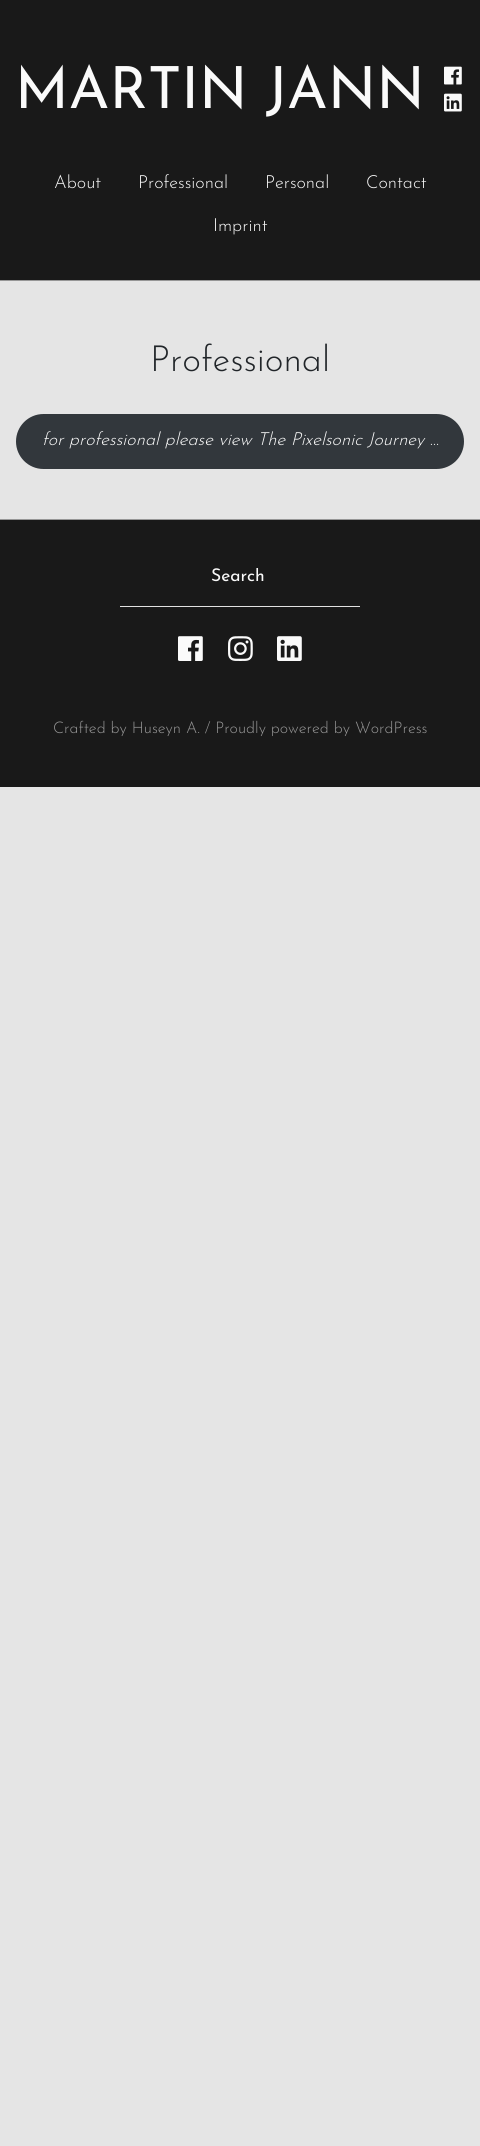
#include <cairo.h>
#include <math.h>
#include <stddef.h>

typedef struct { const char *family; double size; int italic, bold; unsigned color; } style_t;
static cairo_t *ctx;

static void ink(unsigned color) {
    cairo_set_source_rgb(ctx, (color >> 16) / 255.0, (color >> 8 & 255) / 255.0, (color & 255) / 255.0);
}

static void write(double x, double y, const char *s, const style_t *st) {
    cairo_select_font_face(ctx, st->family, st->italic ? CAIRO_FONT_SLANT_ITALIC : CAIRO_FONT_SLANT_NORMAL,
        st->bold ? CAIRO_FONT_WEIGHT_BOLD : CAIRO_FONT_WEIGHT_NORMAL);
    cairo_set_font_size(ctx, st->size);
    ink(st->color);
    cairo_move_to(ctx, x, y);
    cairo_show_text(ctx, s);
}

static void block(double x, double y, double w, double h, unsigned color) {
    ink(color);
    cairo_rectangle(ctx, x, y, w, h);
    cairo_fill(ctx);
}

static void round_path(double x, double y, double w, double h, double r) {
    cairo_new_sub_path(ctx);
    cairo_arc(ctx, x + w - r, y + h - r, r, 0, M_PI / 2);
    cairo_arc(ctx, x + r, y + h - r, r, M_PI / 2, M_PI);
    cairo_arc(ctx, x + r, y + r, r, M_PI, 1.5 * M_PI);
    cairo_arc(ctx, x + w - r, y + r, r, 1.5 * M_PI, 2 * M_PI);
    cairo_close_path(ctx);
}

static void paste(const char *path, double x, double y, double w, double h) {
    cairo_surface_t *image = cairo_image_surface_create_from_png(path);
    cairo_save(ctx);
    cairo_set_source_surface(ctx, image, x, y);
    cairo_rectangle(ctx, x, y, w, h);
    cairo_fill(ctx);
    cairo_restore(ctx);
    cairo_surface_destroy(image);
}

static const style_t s1 = {"Josefin Sans", 58, 0, 0, 0xfafafa};
static const style_t s2 = {"Josefin Sans Light", 18, 0, 0, 0xfafafa};
static const style_t s3 = {"Josefin Sans Light", 36, 0, 0, 0x212529};
static const style_t s4 = {"Josefin Sans Light", 18, 1, 0, 0xfafafa};
static const style_t s5 = {"Josefin Sans", 17.5, 0, 0, 0xfafafa};
static const style_t s6 = {"Josefin Sans Light", 16, 0, 0, 0x969696};

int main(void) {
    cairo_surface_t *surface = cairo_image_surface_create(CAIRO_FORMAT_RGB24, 480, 2146);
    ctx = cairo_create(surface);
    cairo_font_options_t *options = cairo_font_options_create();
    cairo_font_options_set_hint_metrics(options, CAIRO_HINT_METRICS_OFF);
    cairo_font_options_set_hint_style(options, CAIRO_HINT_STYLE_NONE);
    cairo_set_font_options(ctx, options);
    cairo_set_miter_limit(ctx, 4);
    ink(0xe5e5e5);
    cairo_paint(ctx);
    block(0, 0, 480, 280, 0x191919);
    block(0, 280, 480, 1, 0x969696);
    write(15, 108, "MARTIN JANN", &s1);
    paste("pic1.png", 444, 66, 18, 19);
    paste("pic2.png", 444, 93, 18, 19);
    write(54, 188, "About", &s2);
    write(138, 188, "Professional", &s2);
    write(265, 188, "Personal", &s2);
    write(366, 188, "Contact", &s2);
    write(213, 231, "Imprint", &s2);
    write(150, 371, "Professional", &s3);
    ink(0x32373c);
    round_path(16, 414, 448, 55, 27.5);
    cairo_fill(ctx);
    write(42, 445, "for professional please view The Pixelsonic Journey …", &s4);
    block(0, 520, 480, 267, 0x191919);
    block(0, 519, 480, 1, 0x969696);
    cairo_save(ctx);
    cairo_rectangle(ctx, 122, 568, 232, 17);
    cairo_clip(ctx);
    write(211, 581, "Search", &s5);
    cairo_restore(ctx);
    block(120, 606, 240, 1, 0xe1e1e1);
    paste("pic3.png", 178, 636, 25, 25);
    paste("pic4.png", 228, 636, 25, 25);
    paste("pic5.png", 277, 636, 25, 25);
    write(53, 733, "Crafted by Huseyn A. / Proudly powered by WordPress", &s6);
    cairo_surface_write_to_png(surface, "screenshot.png");
    cairo_font_options_destroy(options);
    cairo_destroy(ctx);
    cairo_surface_destroy(surface);
    return 0;
}
